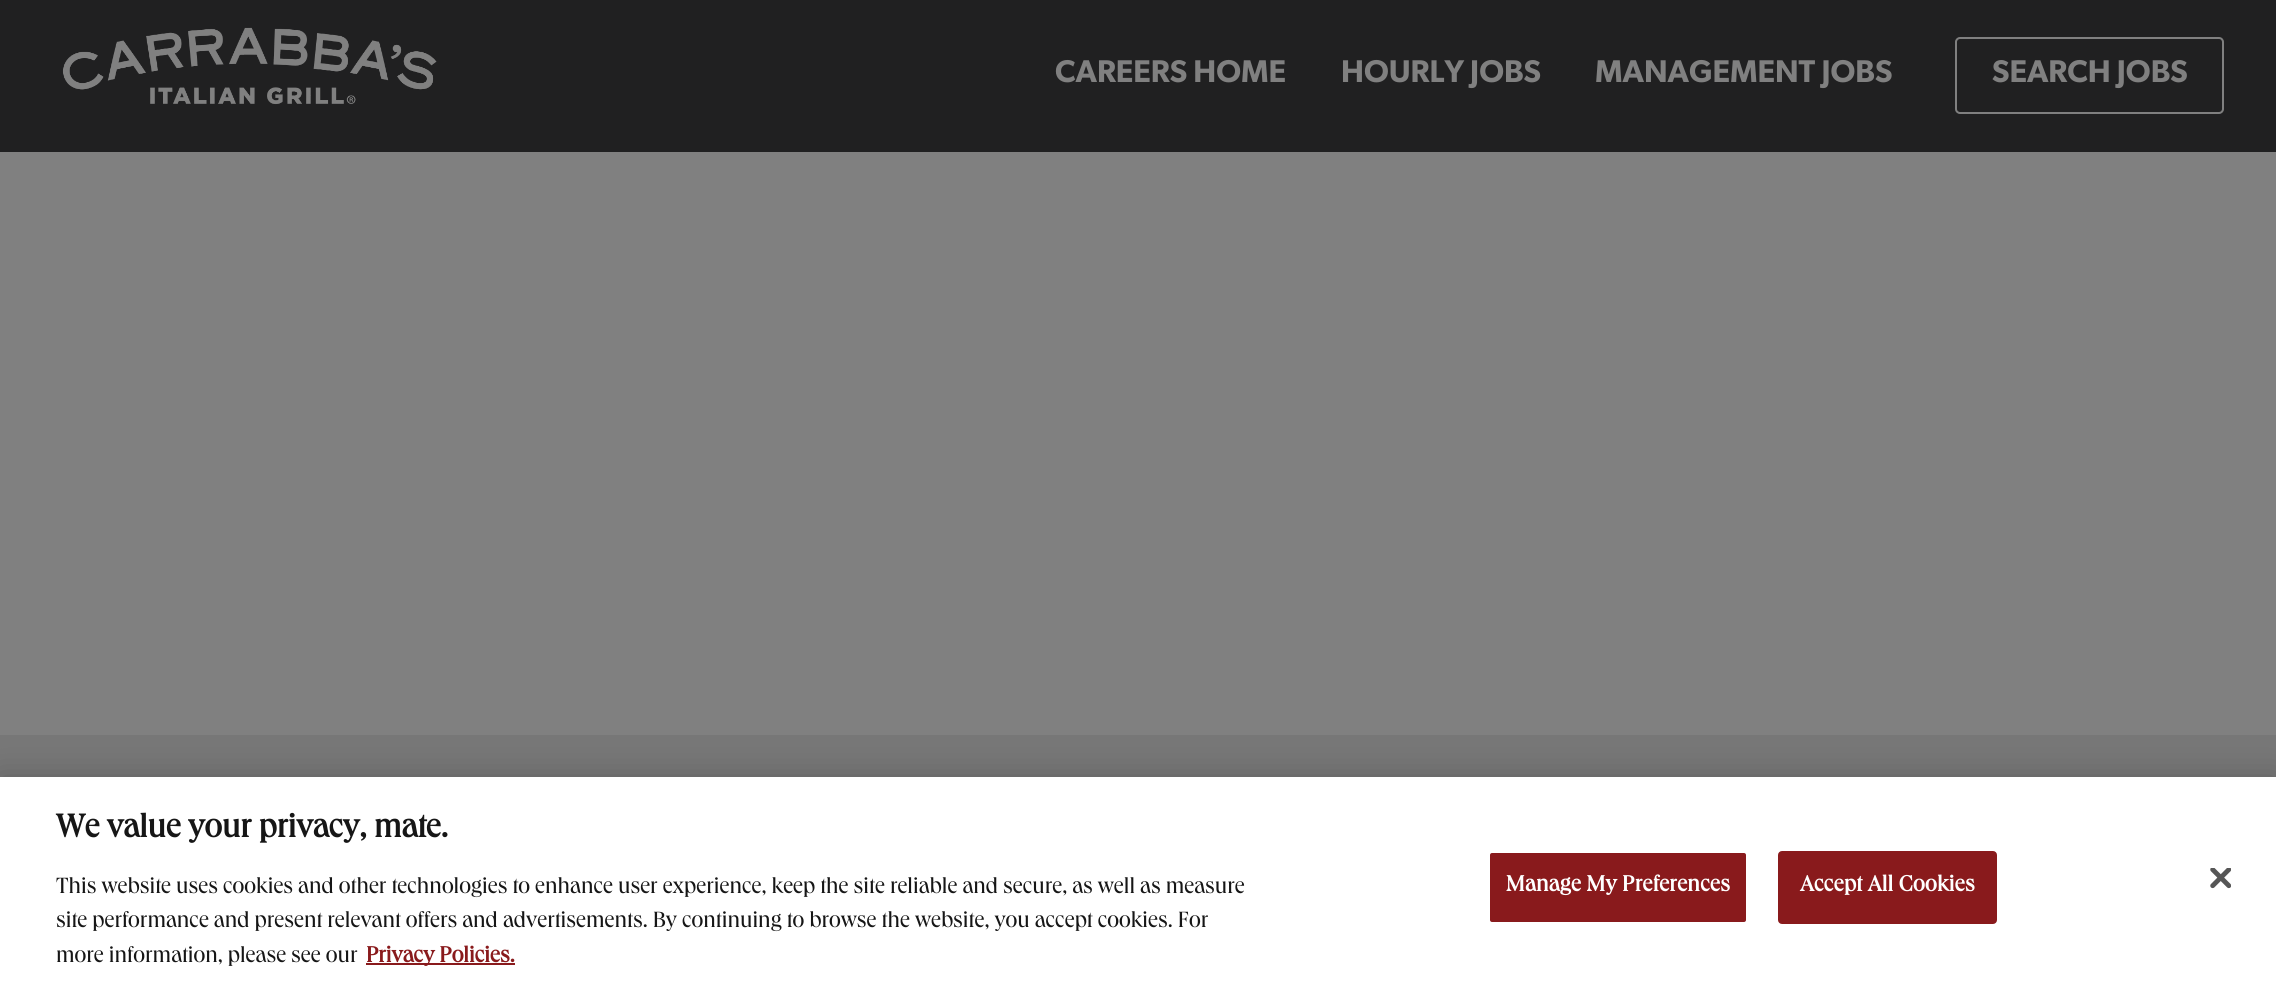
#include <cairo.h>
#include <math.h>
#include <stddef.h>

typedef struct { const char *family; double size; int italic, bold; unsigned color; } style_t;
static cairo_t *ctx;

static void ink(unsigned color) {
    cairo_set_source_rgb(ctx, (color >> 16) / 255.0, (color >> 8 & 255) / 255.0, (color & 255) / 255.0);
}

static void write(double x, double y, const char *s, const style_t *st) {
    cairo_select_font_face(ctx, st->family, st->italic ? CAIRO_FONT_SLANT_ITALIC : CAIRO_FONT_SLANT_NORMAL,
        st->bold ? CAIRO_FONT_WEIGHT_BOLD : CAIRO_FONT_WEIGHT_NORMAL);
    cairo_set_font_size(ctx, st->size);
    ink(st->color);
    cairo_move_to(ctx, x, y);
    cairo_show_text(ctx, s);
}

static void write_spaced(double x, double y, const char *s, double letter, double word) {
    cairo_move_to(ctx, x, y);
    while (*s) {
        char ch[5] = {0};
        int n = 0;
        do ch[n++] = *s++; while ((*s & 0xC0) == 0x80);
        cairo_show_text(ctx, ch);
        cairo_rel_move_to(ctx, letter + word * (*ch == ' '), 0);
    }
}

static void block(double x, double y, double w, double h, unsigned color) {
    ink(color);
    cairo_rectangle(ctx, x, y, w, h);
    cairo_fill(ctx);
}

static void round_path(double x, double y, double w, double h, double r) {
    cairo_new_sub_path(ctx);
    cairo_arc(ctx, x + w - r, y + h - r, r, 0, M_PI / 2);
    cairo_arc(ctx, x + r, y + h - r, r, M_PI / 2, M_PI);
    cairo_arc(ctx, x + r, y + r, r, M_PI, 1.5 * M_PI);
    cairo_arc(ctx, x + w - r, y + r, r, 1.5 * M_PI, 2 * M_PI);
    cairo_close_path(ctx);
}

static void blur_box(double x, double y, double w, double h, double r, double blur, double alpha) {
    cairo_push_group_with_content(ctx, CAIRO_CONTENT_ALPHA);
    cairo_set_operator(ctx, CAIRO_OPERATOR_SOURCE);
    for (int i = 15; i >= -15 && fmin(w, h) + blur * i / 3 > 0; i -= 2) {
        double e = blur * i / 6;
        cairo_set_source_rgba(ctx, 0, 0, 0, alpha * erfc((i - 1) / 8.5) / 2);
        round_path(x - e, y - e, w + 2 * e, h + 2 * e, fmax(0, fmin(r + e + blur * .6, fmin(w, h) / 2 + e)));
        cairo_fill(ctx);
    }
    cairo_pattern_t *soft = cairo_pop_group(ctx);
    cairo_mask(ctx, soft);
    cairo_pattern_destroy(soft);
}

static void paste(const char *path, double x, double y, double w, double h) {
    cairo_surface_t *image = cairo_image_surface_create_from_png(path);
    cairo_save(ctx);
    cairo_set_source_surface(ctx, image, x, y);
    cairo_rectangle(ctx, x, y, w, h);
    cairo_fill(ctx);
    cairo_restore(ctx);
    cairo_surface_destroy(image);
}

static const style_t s1 = {"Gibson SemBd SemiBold", 31.5, 0, 0, 0x808080};
static const style_t s2 = {"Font", 33.6, 0, 1, 0x161616};
static const style_t s3 = {"Font", 22.75, 0, 0, 0x161616};
static const style_t s4 = {"Font", 22.75, 0, 1, 0x891a1c};

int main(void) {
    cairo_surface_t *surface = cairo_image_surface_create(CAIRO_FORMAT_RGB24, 2276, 992);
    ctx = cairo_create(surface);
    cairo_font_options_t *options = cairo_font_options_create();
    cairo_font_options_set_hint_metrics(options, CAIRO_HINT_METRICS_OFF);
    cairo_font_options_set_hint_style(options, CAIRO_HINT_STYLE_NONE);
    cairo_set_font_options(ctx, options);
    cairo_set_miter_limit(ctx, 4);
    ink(0x808080);
    cairo_paint(ctx);
    block(0, 0, 2276, 152, 0x202021);
    paste("pic1.png", 62, 27, 375, 78);
    write(1055, 82, "CAREERS HOME", &s1);
    write(1341, 82, "HOURLY JOBS", &s1);
    write(1595, 82, "MANAGEMENT JOBS", &s1);
    round_path(1956, 38, 267, 75, 4);
    cairo_stroke(ctx);
    write(1992, 82, "SEARCH JOBS", &s1);
    block(0, 735, 2276, 42, 0x777777);
    ink(0x000000);
    blur_box(0, 777, 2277, 215, 0, 16, 0.2);
    block(0, 777, 2276, 215, 0xffffff);
    write(56, 837, "We value your privacy, mate.", &s2);
    write(56, 893, "This website uses cookies and other technologies to enhance user experience, keep the site reliable and secure, as well as measure", &s3);
    write(56, 927, "site performance and present relevant offers and advertisements. By continuing to browse the website, you accept cookies. For", &s3);
    write(56, 962, "more information, please see our", &s3);
    block(366, 963, 149, 2, 0x891a1c);
    write(366, 962, "Privacy Policies.", &s4);
    round_path(1489, 852, 258, 71, 3);
    cairo_fill_preserve(ctx);
    ink(0xffffff);
    cairo_stroke(ctx);
    write_spaced(1506, 891, "Manage My Preferences", 0.25, 0);
    ink(0x891a1c);
    round_path(1779, 852, 217, 71, 3);
    cairo_fill_preserve(ctx);
    cairo_stroke(ctx);
    ink(0xffffff);
    write_spaced(1800, 891, "Accept All Cookies", 0.25, 0);
    paste("pic2.png", 2210, 868, 21, 21);
    cairo_surface_write_to_png(surface, "screenshot.png");
    cairo_font_options_destroy(options);
    cairo_destroy(ctx);
    cairo_surface_destroy(surface);
    return 0;
}
